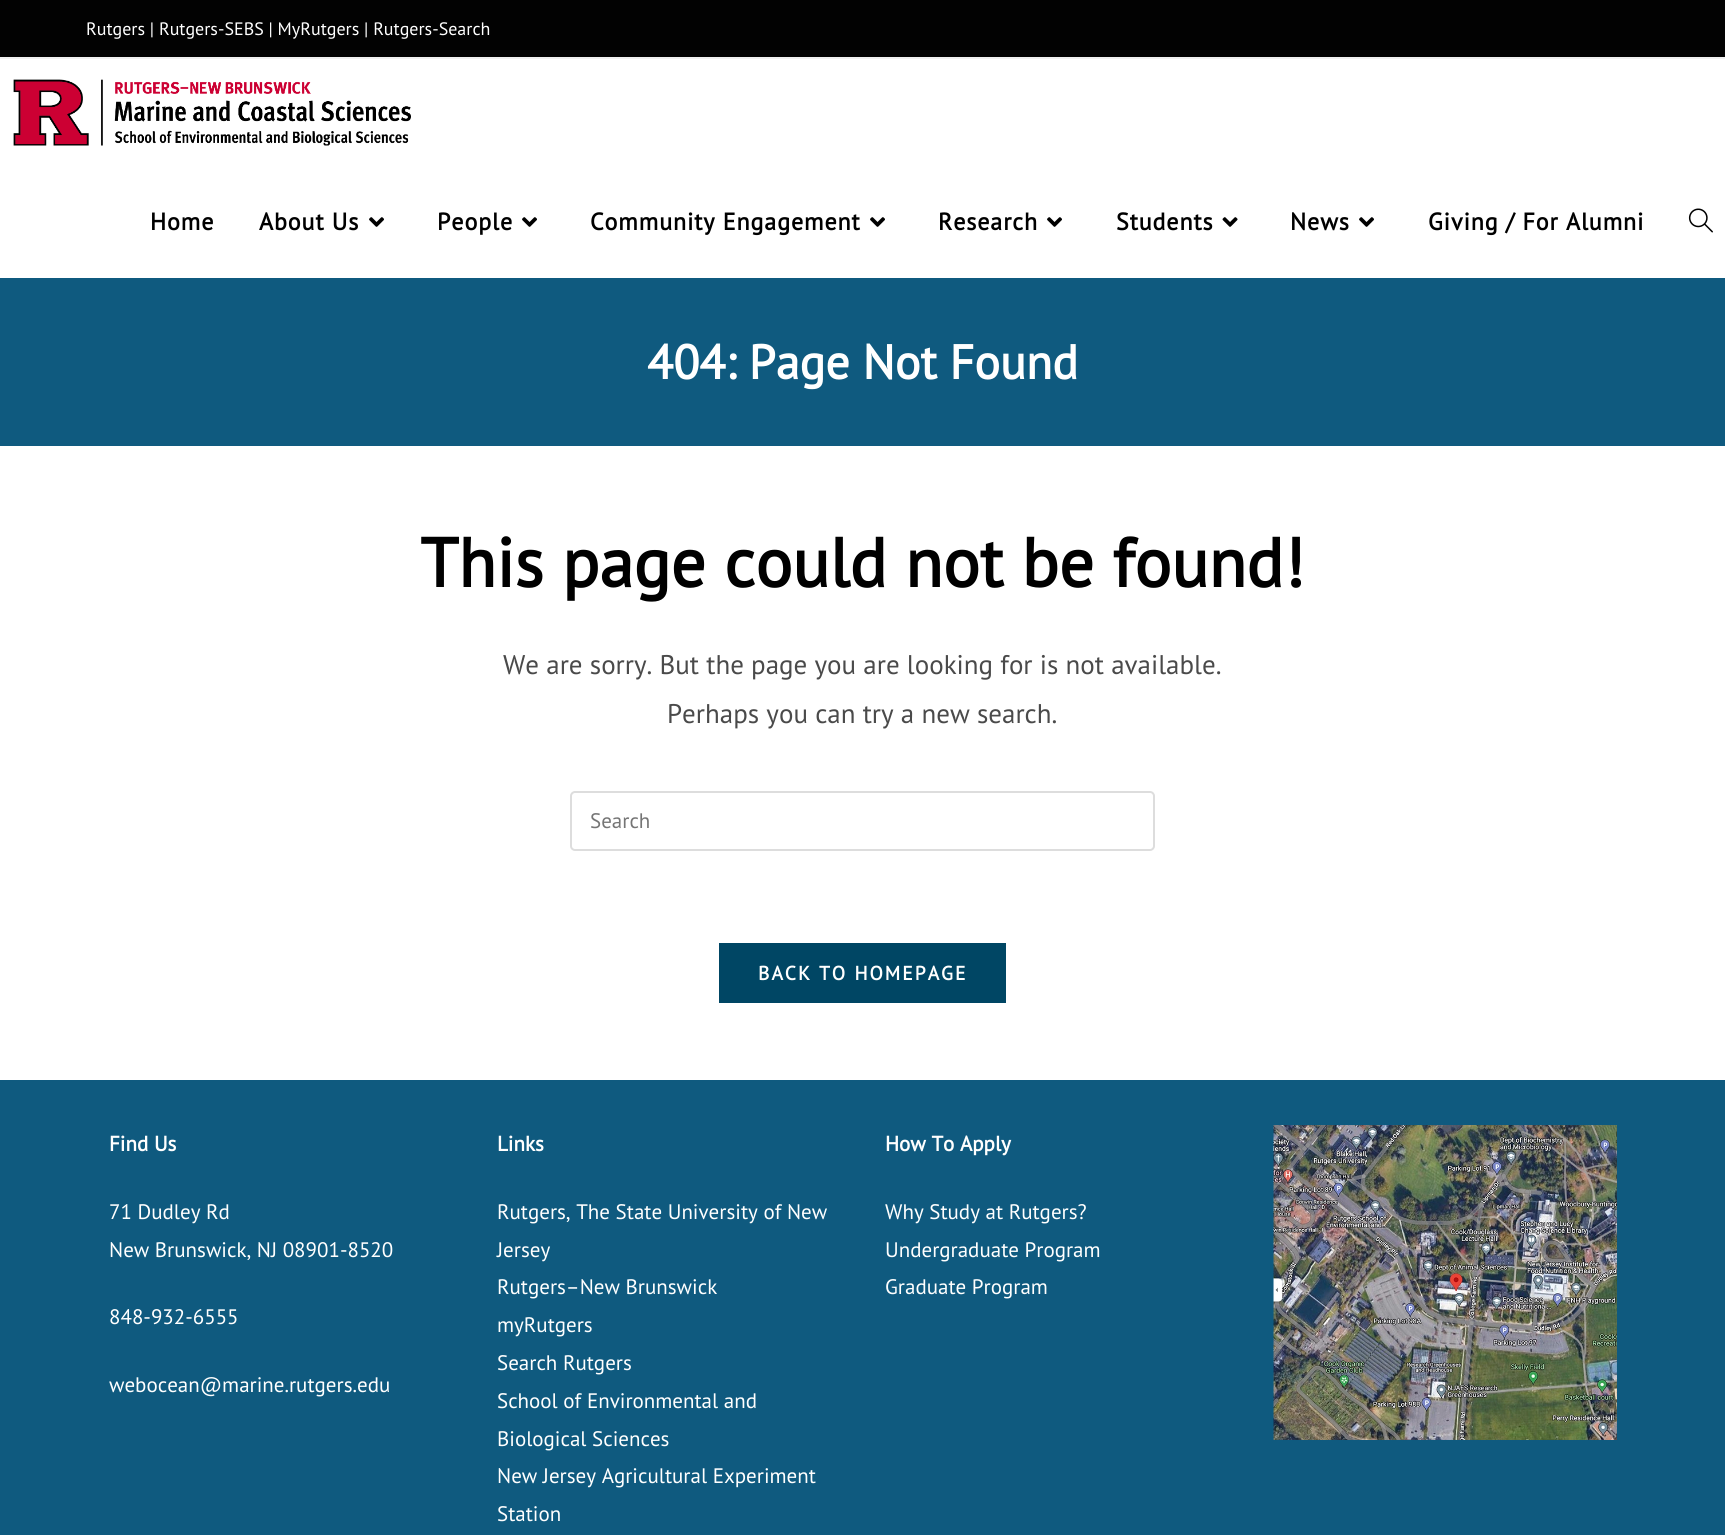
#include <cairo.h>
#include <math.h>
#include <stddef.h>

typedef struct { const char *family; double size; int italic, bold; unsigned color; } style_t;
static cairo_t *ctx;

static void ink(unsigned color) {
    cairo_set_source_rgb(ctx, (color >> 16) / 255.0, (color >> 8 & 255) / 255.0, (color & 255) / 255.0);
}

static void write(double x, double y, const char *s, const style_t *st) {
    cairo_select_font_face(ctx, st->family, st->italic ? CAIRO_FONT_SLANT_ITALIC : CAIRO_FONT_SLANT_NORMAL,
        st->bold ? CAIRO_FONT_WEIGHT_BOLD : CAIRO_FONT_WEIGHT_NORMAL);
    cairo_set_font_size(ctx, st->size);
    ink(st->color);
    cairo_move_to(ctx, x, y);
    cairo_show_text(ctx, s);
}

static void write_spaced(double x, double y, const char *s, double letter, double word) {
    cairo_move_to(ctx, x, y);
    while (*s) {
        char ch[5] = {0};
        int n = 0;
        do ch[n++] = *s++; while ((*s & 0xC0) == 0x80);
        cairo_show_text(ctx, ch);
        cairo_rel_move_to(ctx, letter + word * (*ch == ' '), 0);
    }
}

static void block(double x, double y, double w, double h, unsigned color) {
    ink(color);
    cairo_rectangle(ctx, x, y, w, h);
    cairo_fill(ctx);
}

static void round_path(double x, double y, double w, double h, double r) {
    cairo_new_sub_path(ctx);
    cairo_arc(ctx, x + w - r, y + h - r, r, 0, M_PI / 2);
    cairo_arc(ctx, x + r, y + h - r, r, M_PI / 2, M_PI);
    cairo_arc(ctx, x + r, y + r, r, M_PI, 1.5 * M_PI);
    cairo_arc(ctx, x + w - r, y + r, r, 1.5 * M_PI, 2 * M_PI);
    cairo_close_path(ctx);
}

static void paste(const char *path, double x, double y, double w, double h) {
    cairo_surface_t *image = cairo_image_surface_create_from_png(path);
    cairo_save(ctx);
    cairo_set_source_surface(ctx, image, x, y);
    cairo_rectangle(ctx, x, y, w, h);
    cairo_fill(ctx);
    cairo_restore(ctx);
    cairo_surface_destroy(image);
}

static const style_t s1 = {"PT Sans", 18, 0, 0, 0xffffff};
static const style_t s2 = {"PT Sans", 48, 0, 1, 0xffffff};
static const style_t s3 = {"PT Sans", 69, 0, 1, 0x000000};
static const style_t s4 = {"PT Sans", 27, 0, 0, 0x4a4a4a};
static const style_t s5 = {"PT Sans", 21, 0, 0, 0x757575};
static const style_t s6 = {"PT Sans", 21, 0, 1, 0xffffff};
static const style_t s7 = {"PT Sans", 21, 0, 0, 0xffffff};

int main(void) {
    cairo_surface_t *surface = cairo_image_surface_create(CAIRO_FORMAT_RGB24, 1725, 1535);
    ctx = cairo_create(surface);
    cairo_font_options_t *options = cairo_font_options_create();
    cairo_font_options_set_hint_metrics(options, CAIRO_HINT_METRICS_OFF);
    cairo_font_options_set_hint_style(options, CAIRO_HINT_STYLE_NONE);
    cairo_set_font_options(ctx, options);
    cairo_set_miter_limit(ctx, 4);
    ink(0xffffff);
    cairo_paint(ctx);
    block(0, 0, 1725, 57, 0x020202);
    block(0, 57, 1725, 2, 0xf1f1f1);
    write(86, 35, "Rutgers | Rutgers-SEBS | MyRutgers | Rutgers-Search", &s1);
    paste("pic1.png", 13, 79, 398, 67);
    cairo_select_font_face(ctx, "PT Sans", CAIRO_FONT_SLANT_NORMAL, CAIRO_FONT_WEIGHT_BOLD);
    cairo_set_font_size(ctx, 24);
    ink(0x000000);
    write_spaced(150, 230, "Home", 0.9, 0);
    write_spaced(259, 230, "About Us", 0.9, 0);
    paste("pic2.png", 369, 217, 15, 10);
    write_spaced(437, 230, "People", 0.9, 0);
    paste("pic2.png", 522, 217, 15, 10);
    write_spaced(590, 230, "Community Engagement", 0.9, 0);
    paste("pic2.png", 870, 217, 15, 10);
    write_spaced(938, 230, "Research", 0.9, 0);
    paste("pic2.png", 1047, 217, 15, 10);
    write_spaced(1116, 230, "Students", 0.9, 0);
    paste("pic3.png", 1222, 217, 16, 10);
    write_spaced(1290, 230, "News", 0.9, 0);
    paste("pic2.png", 1359, 217, 15, 10);
    write_spaced(1428, 230, "Giving / For Alumni", 0.9, 0);
    paste("pic4.png", 1688, 208, 25, 25);
    block(0, 278, 1725, 168, 0x0f5a7f);
    write(647, 379, "404: Page Not Found", &s2);
    write(420, 587, "This page could not be found!", &s3);
    write(503, 674, "We are sorry. But the page you are looking for is not available.", &s4);
    write(667, 723, "Perhaps you can try a new search.", &s4);
    round_path(571, 792, 583, 58, 4);
    ink(0xdddddd);
    cairo_stroke(ctx);
    write(590, 828, "Search", &s5);
    block(719, 943, 287, 60, 0x004664);
    cairo_select_font_face(ctx, "PT Sans", CAIRO_FONT_SLANT_NORMAL, CAIRO_FONT_WEIGHT_BOLD);
    cairo_set_font_size(ctx, 19.5);
    ink(0xffffff);
    write_spaced(758, 980, "BACK TO HOMEPAGE", 2, 0);
    block(0, 1080, 1725, 455, 0x0f5a7f);
    write(109, 1151, "Find Us", &s6);
    write(109, 1219, "71 Dudley Rd", &s7);
    write(109, 1257, "New Brunswick, NJ 08901-8520", &s7);
    write(109, 1324, "848-932-6555", &s7);
    write(109, 1392, "webocean@marine.rutgers.edu", &s7);
    write(497, 1151, "Links", &s6);
    write(497, 1219, "Rutgers, The State University of New", &s7);
    write(497, 1257, "Jersey", &s7);
    write(497, 1294, "Rutgers–New Brunswick", &s7);
    write(497, 1332, "myRutgers", &s7);
    write(497, 1370, "Search Rutgers", &s7);
    write(497, 1408, "School of Environmental and", &s7);
    write(497, 1446, "Biological Sciences", &s7);
    write(497, 1483, "New Jersey Agricultural Experiment", &s7);
    write(497, 1521, "Station", &s7);
    write(885, 1151, "How To Apply", &s6);
    write(885, 1219, "Why Study at Rutgers?", &s7);
    write(885, 1257, "Undergraduate Program", &s7);
    write(885, 1294, "Graduate Program", &s7);
    paste("pic5.png", 1273, 1125, 344, 315);
    cairo_surface_write_to_png(surface, "screenshot.png");
    cairo_font_options_destroy(options);
    cairo_destroy(ctx);
    cairo_surface_destroy(surface);
    return 0;
}
